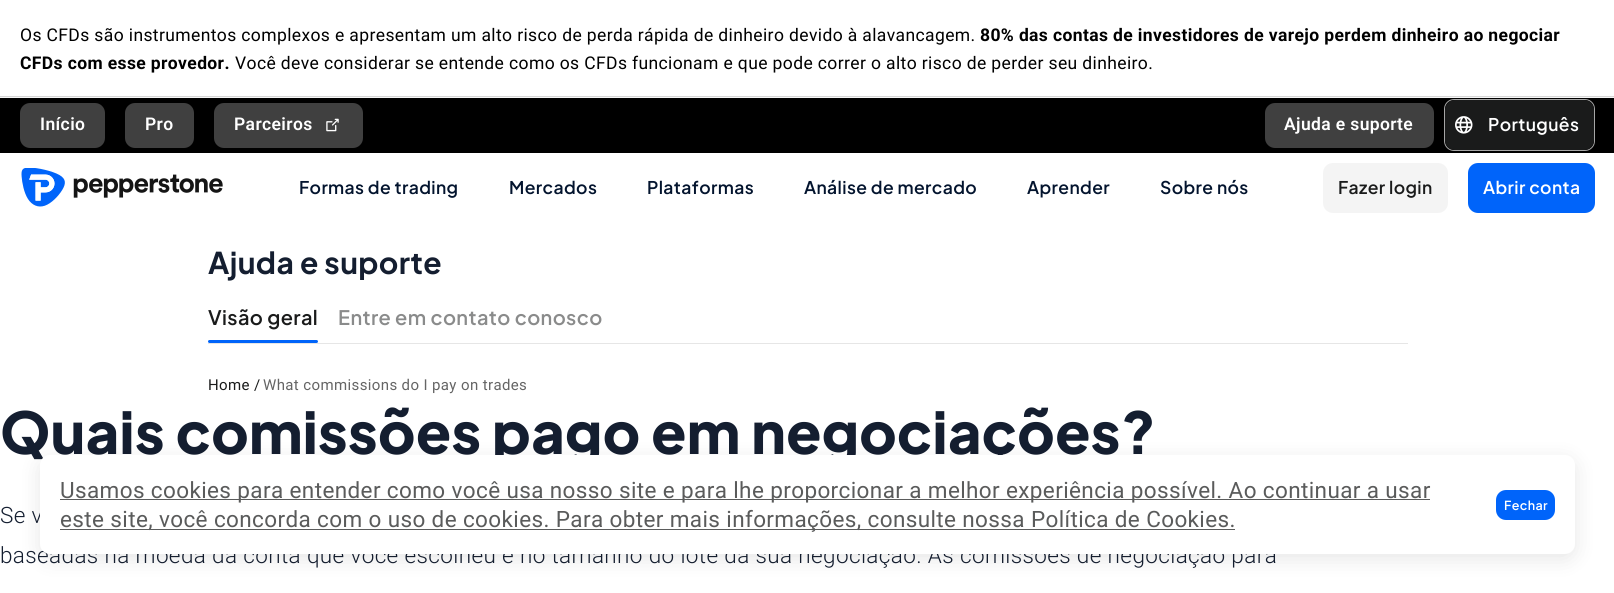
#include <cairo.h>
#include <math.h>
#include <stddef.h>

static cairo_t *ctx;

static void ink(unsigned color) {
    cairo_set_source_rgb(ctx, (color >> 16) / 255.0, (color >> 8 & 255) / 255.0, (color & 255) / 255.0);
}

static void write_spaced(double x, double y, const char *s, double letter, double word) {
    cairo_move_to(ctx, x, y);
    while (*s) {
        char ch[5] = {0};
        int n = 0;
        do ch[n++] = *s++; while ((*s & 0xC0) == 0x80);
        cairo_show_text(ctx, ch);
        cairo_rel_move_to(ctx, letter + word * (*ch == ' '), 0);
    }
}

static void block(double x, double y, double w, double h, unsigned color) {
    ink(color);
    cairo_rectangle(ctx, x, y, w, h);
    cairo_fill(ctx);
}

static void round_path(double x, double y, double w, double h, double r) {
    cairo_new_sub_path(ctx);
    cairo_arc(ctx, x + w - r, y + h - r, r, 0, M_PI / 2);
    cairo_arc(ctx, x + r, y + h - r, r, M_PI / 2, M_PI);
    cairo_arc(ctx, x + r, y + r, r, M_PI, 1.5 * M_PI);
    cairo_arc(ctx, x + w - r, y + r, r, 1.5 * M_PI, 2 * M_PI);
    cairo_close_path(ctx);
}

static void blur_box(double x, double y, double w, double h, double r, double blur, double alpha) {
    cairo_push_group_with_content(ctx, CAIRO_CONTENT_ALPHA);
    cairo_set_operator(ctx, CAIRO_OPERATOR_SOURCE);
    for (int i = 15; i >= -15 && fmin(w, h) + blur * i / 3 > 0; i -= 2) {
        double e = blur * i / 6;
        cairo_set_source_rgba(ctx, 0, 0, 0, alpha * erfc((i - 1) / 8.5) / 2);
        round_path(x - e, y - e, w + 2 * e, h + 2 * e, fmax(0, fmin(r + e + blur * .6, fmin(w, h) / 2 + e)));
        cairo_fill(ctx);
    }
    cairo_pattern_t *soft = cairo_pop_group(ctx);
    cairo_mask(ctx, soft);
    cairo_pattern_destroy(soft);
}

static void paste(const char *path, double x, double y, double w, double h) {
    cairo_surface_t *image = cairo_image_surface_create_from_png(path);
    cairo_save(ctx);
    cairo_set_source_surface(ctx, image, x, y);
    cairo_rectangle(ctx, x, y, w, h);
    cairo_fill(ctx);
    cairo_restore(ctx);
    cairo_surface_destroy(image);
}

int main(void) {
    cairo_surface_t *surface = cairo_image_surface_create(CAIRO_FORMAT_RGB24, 1614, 593);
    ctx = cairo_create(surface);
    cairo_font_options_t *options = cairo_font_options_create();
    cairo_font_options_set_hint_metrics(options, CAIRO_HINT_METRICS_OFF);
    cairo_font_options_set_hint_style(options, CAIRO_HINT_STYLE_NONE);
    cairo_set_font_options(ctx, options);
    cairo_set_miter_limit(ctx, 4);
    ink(0xf7f7f7);
    cairo_paint(ctx);
    block(0, 0, 1614, 96, 0xffffff);
    block(0, 96, 1614, 1, 0xd6d6d6);
    cairo_select_font_face(ctx, "Roboto", CAIRO_FONT_SLANT_NORMAL, CAIRO_FONT_WEIGHT_NORMAL);
    cairo_set_font_size(ctx, 17.5);
    ink(0x000000);
    write_spaced(20, 41, "Os CFDs são instrumentos complexos e apresentam um alto risco de perda rápida de dinheiro devido à alavancagem.", 0.38, 0);
    cairo_select_font_face(ctx, "Roboto", CAIRO_FONT_SLANT_NORMAL, CAIRO_FONT_WEIGHT_BOLD);
    write_spaced(980, 41, "80% das contas de investidores de varejo perdem dinheiro ao negociar", 0.38, 0);
    write_spaced(20, 69, "CFDs com esse provedor.", 0.38, 0);
    cairo_select_font_face(ctx, "Roboto", CAIRO_FONT_SLANT_NORMAL, CAIRO_FONT_WEIGHT_NORMAL);
    write_spaced(235, 69, "Você deve considerar se entende como os CFDs funcionam e que pode correr o alto risco de perder seu dinheiro.", 0.38, 0);
    block(0, 98, 1614, 55, 0x000000);
    ink(0x404040);
    round_path(20, 103, 85, 45, 10);
    cairo_fill(ctx);
    cairo_select_font_face(ctx, "Roboto SemiBold", CAIRO_FONT_SLANT_NORMAL, CAIRO_FONT_WEIGHT_NORMAL);
    ink(0xffffff);
    write_spaced(40, 130, "Início", 0.38, 0);
    ink(0x404040);
    round_path(125, 103, 69, 45, 10);
    cairo_fill(ctx);
    ink(0xffffff);
    write_spaced(145, 130, "Pro", 0.38, 0);
    ink(0x404040);
    round_path(214, 103, 149, 45, 10);
    cairo_fill(ctx);
    ink(0xffffff);
    write_spaced(234, 130, "Parceiros", 0.38, 0);
    paste("pic1.png", 326, 118, 13, 14);
    ink(0x404040);
    round_path(1265, 103, 169, 45, 10);
    cairo_fill(ctx);
    ink(0xffffff);
    write_spaced(1284, 130, "Ajuda e suporte", 0.38, 0);
    round_path(1444.5, 99.5, 150, 51, 9.5);
    ink(0xa6a6a6);
    cairo_set_line_width(ctx, 1);
    cairo_stroke(ctx);
    ink(0x1a1b1b);
    round_path(1445, 100, 149, 50, 10);
    cairo_fill(ctx);
    paste("pic2.png", 1455, 116, 18, 18);
    cairo_select_font_face(ctx, "Plus Jakarta Sans SemiBold", CAIRO_FONT_SLANT_NORMAL, CAIRO_FONT_WEIGHT_NORMAL);
    ink(0xffffff);
    write_spaced(1488, 131, "Português", 0.38, 0);
    block(0, 153, 1614, 440, 0xffffff);
    paste("pic3.png", 21, 168, 202, 39);
    ink(0x03142e);
    write_spaced(299, 194, "Formas de trading", 0.38, 0);
    write_spaced(509, 194, "Mercados", 0.38, 0);
    write_spaced(647, 194, "Plataformas", 0.38, 0);
    write_spaced(804, 194, "Análise de mercado", 0.38, 0);
    write_spaced(1027, 194, "Aprender", 0.38, 0);
    write_spaced(1160, 194, "Sobre nós", 0.38, 0);
    ink(0xf4f4f4);
    round_path(1323, 163, 125, 50, 10);
    cairo_fill(ctx);
    ink(0x1a1b1b);
    write_spaced(1338, 194, "Fazer login", 0.38, 0);
    ink(0x0064fa);
    round_path(1468, 163, 127, 50, 10);
    cairo_fill(ctx);
    ink(0xffffff);
    write_spaced(1483, 194, "Abrir conta", 0.38, 0);
    cairo_select_font_face(ctx, "Plus Jakarta Sans", CAIRO_FONT_SLANT_NORMAL, CAIRO_FONT_WEIGHT_BOLD);
    cairo_set_font_size(ctx, 30);
    ink(0x141e30);
    write_spaced(208, 274, "Ajuda e suporte", 0.38, 0);
    block(208, 343, 1200, 1, 0xe6e6e6);
    cairo_select_font_face(ctx, "Plus Jakarta Sans SemiBold", CAIRO_FONT_SLANT_NORMAL, CAIRO_FONT_WEIGHT_NORMAL);
    cairo_set_font_size(ctx, 20);
    ink(0x1a1b1b);
    write_spaced(208, 325, "Visão geral", 0.38, 0);
    ink(0x0064fa);
    round_path(208, 340, 110, 3, 1.5);
    cairo_fill(ctx);
    ink(0x8a8b8b);
    write_spaced(338, 325, "Entre em contato conosco", 0.38, 0);
    cairo_select_font_face(ctx, "Roboto", CAIRO_FONT_SLANT_NORMAL, CAIRO_FONT_WEIGHT_NORMAL);
    cairo_set_font_size(ctx, 15);
    ink(0x1a1b1b);
    write_spaced(208, 390, "Home /", 0.38, 0);
    ink(0x656565);
    write_spaced(263, 390, "What commissions do I pay on trades", 0.38, 0);
    cairo_select_font_face(ctx, "Plus Jakarta Sans ExtraBold", CAIRO_FONT_SLANT_NORMAL, CAIRO_FONT_WEIGHT_NORMAL);
    cairo_set_font_size(ctx, 57.5);
    ink(0x141e30);
    write_spaced(0, 454, "Quais comissões pago em negociações?", 0.38, 0);
    cairo_select_font_face(ctx, "Roboto Light", CAIRO_FONT_SLANT_NORMAL, CAIRO_FONT_WEIGHT_NORMAL);
    cairo_set_font_size(ctx, 22.5);
    write_spaced(0, 523, "Se v", 0.38, 0);
    write_spaced(0, 563, "baseadas na moeda da conta que você escolheu e no tamanho do lote da sua negociação. As comissões de negociação para", 0.38, 0);
    ink(0x000000);
    blur_box(40, 460, 1535, 99, 10, 10, 0.1);
    ink(0xffffff);
    round_path(40, 455, 1535, 99, 10);
    cairo_fill(ctx);
    block(60, 499, 1370, 1, 0x5a5b5b);
    cairo_select_font_face(ctx, "Roboto", CAIRO_FONT_SLANT_NORMAL, CAIRO_FONT_WEIGHT_NORMAL);
    write_spaced(60, 498, "Usamos cookies para entender como você usa nosso site e para lhe proporcionar a melhor experiência possível. Ao continuar a usar", 0.38, 0);
    block(60, 529, 1175, 1, 0x5a5b5b);
    write_spaced(60, 527, "este site, você concorda com o uso de cookies. Para obter mais informações, consulte nossa Política de Cookies.", 0.38, 0);
    ink(0x0064fa);
    round_path(1496, 490, 59, 30, 10);
    cairo_fill(ctx);
    cairo_select_font_face(ctx, "Plus Jakarta Sans SemiBold", CAIRO_FONT_SLANT_NORMAL, CAIRO_FONT_WEIGHT_NORMAL);
    cairo_set_font_size(ctx, 12.5);
    ink(0xffffff);
    write_spaced(1504, 510, "Fechar", 0.38, 0);
    cairo_surface_write_to_png(surface, "screenshot.png");
    cairo_font_options_destroy(options);
    cairo_destroy(ctx);
    cairo_surface_destroy(surface);
    return 0;
}
